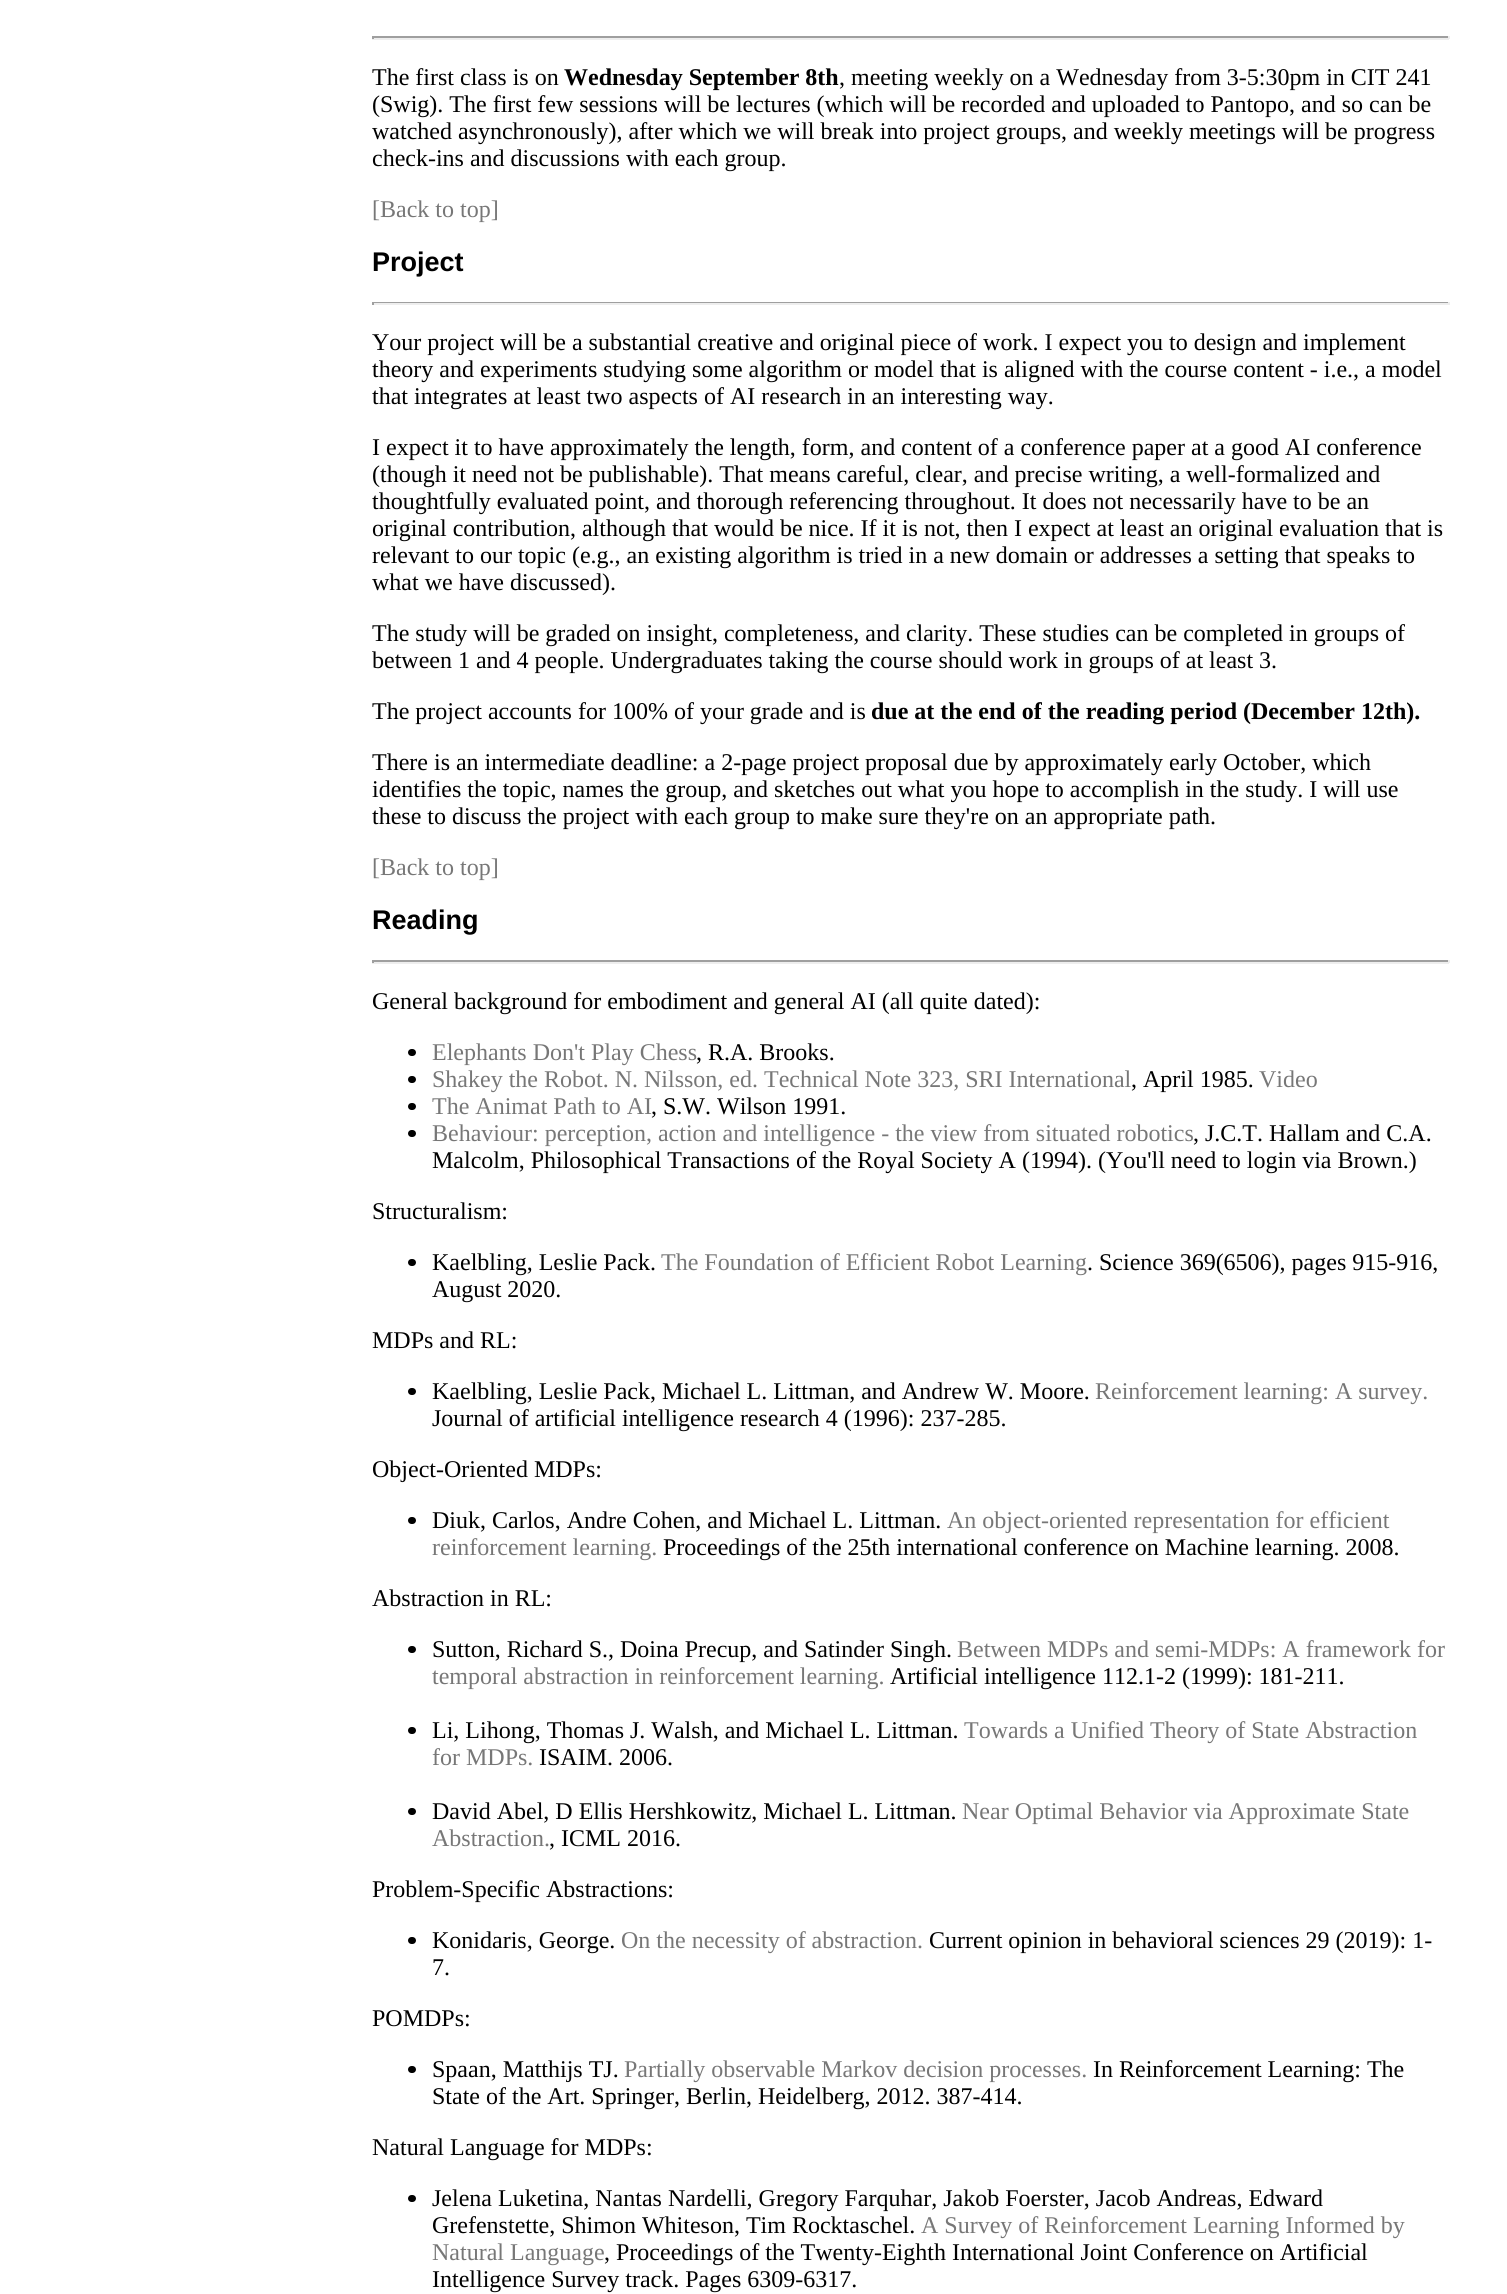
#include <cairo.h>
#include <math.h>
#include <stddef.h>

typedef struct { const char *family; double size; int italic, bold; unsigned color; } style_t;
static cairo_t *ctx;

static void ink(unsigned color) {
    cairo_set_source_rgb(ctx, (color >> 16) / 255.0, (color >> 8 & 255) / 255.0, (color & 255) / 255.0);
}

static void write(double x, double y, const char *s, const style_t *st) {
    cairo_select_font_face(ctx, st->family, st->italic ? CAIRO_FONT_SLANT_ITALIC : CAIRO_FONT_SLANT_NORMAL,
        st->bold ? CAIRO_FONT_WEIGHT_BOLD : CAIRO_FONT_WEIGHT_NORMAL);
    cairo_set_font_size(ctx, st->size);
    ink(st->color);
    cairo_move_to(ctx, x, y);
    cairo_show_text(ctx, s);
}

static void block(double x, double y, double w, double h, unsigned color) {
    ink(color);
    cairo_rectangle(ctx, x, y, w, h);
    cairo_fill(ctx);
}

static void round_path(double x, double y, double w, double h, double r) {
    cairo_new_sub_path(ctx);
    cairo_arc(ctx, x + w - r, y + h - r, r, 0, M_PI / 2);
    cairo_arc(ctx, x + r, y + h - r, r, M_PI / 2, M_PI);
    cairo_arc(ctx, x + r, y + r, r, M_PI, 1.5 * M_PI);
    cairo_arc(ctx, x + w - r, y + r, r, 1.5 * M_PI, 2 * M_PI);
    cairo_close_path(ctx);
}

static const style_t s1 = {"Liberation Serif", 24, 0, 0, 0x000000};
static const style_t s2 = {"Liberation Serif", 24, 0, 1, 0x000000};
static const style_t s3 = {"Liberation Serif", 24, 0, 0, 0x777777};
static const style_t s4 = {"Liberation Sans", 27, 0, 1, 0x000000};

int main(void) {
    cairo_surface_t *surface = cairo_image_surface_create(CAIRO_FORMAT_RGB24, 1507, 2294);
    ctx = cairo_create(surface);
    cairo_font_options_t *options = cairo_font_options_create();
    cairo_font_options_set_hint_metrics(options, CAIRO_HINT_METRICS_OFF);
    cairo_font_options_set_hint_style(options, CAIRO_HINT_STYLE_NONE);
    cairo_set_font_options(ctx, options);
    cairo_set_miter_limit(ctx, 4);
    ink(0xffffff);
    cairo_paint(ctx);
    block(372, 36, 1077, 2, 0x9f9f9f);
    block(1448, 36, 2, 3, 0xeeeeee);
    block(372, 38, 1077, 2, 0xeeeeee);
    block(372, 36, 2, 3, 0x9f9f9f);
    write(372, 85, "The first class is on", &s1);
    write(564, 85, "Wednesday September 8th", &s2);
    write(839, 85, ", meeting weekly on a Wednesday from 3-5:30pm in CIT 241", &s1);
    write(372, 112, "(Swig). The first few sessions will be lectures (which will be recorded and uploaded to Pantopo, and so can be", &s1);
    write(372, 139, "watched asynchronously), after which we will break into project groups, and weekly meetings will be progress", &s1);
    write(372, 166, "check-ins and discussions with each group.", &s1);
    write(372, 217, "[Back to top]", &s3);
    write(372, 271, "Project", &s4);
    block(372, 302, 1077, 1, 0x9f9f9f);
    block(1448, 302, 2, 3, 0xeeeeee);
    block(372, 303, 1077, 2, 0xeeeeee);
    block(372, 302, 2, 3, 0x9f9f9f);
    write(372, 350, "Your project will be a substantial creative and original piece of work. I expect you to design and implement", &s1);
    write(372, 377, "theory and experiments studying some algorithm or model that is aligned with the course content - i.e., a model", &s1);
    write(372, 404, "that integrates at least two aspects of AI research in an interesting way.", &s1);
    write(372, 455, "I expect it to have approximately the length, form, and content of a conference paper at a good AI conference", &s1);
    write(372, 482, "(though it need not be publishable). That means careful, clear, and precise writing, a well-formalized and", &s1);
    write(372, 509, "thoughtfully evaluated point, and thorough referencing throughout. It does not necessarily have to be an", &s1);
    write(372, 536, "original contribution, although that would be nice. If it is not, then I expect at least an original evaluation that is", &s1);
    write(372, 563, "relevant to our topic (e.g., an existing algorithm is tried in a new domain or addresses a setting that speaks to", &s1);
    write(372, 590, "what we have discussed).", &s1);
    write(372, 641, "The study will be graded on insight, completeness, and clarity. These studies can be completed in groups of", &s1);
    write(372, 668, "between 1 and 4 people. Undergraduates taking the course should work in groups of at least 3.", &s1);
    write(372, 719, "The project accounts for 100% of your grade and is", &s1);
    write(871, 719, "due at the end of the reading period (December 12th).", &s2);
    write(372, 770, "There is an intermediate deadline: a 2-page project proposal due by approximately early October, which", &s1);
    write(372, 797, "identifies the topic, names the group, and sketches out what you hope to accomplish in the study. I will use", &s1);
    write(372, 824, "these to discuss the project with each group to make sure they're on an appropriate path.", &s1);
    write(372, 875, "[Back to top]", &s3);
    write(372, 929, "Reading", &s4);
    block(372, 960, 1077, 2, 0x9f9f9f);
    block(1448, 960, 2, 3, 0xeeeeee);
    block(372, 962, 1077, 2, 0xeeeeee);
    block(372, 960, 2, 3, 0x9f9f9f);
    write(372, 1009, "General background for embodiment and general AI (all quite dated):", &s1);
    round_path(408, 1049, 8, 7, 3.5);
    cairo_fill(ctx);
    write(432, 1060, "Elephants Don't Play Chess", &s3);
    write(696, 1060, ", R.A. Brooks.", &s1);
    round_path(408, 1076, 8, 7, 3.5);
    cairo_fill(ctx);
    write(432, 1087, "Shakey the Robot. N. Nilsson, ed. Technical Note 323, SRI International", &s3);
    write(1131, 1087, ", April 1985.", &s1);
    write(1259, 1087, "Video", &s3);
    ink(0x000000);
    round_path(408, 1103, 8, 7, 3.5);
    cairo_fill(ctx);
    write(432, 1114, "The Animat Path to AI", &s3);
    write(651, 1114, ", S.W. Wilson 1991.", &s1);
    round_path(408, 1130, 8, 7, 3.5);
    cairo_fill(ctx);
    write(432, 1141, "Behaviour: perception, action and intelligence - the view from situated robotics", &s3);
    write(1193, 1141, ", J.C.T. Hallam and C.A.", &s1);
    write(432, 1168, "Malcolm, Philosophical Transactions of the Royal Society A (1994). (You'll need to login via Brown.)", &s1);
    write(372, 1219, "Structuralism:", &s1);
    round_path(408, 1259, 8, 7, 3.5);
    cairo_fill(ctx);
    write(432, 1270, "Kaelbling, Leslie Pack.", &s1);
    write(661, 1270, "The Foundation of Efficient Robot Learning", &s3);
    write(1087, 1270, ". Science 369(6506), pages 915-916,", &s1);
    write(432, 1297, "August 2020.", &s1);
    write(372, 1348, "MDPs and RL:", &s1);
    round_path(408, 1388, 8, 7, 3.5);
    cairo_fill(ctx);
    write(432, 1399, "Kaelbling, Leslie Pack, Michael L. Littman, and Andrew W. Moore.", &s1);
    write(1095, 1399, "Reinforcement learning: A survey.", &s3);
    write(432, 1426, "Journal of artificial intelligence research 4 (1996): 237-285.", &s1);
    write(372, 1477, "Object-Oriented MDPs:", &s1);
    round_path(408, 1517, 8, 7, 3.5);
    cairo_fill(ctx);
    write(432, 1528, "Diuk, Carlos, Andre Cohen, and Michael L. Littman.", &s1);
    write(947, 1528, "An object-oriented representation for efficient", &s3);
    write(432, 1555, "reinforcement learning.", &s3);
    write(663, 1555, "Proceedings of the 25th international conference on Machine learning. 2008.", &s1);
    write(372, 1606, "Abstraction in RL:", &s1);
    round_path(408, 1646, 8, 7, 3.5);
    cairo_fill(ctx);
    write(432, 1657, "Sutton, Richard S., Doina Precup, and Satinder Singh.", &s1);
    write(957, 1657, "Between MDPs and semi-MDPs: A framework for", &s3);
    write(432, 1684, "temporal abstraction in reinforcement learning.", &s3);
    write(890, 1684, "Artificial intelligence 112.1-2 (1999): 181-211.", &s1);
    round_path(408, 1727, 8, 7, 3.5);
    cairo_fill(ctx);
    write(432, 1738, "Li, Lihong, Thomas J. Walsh, and Michael L. Littman.", &s1);
    write(964, 1738, "Towards a Unified Theory of State Abstraction", &s3);
    write(432, 1765, "for MDPs.", &s3);
    write(539, 1765, "ISAIM. 2006.", &s1);
    round_path(408, 1808, 8, 7, 3.5);
    cairo_fill(ctx);
    write(432, 1819, "David Abel, D Ellis Hershkowitz, Michael L. Littman.", &s1);
    write(962, 1819, "Near Optimal Behavior via Approximate State", &s3);
    write(432, 1846, "Abstraction.", &s3);
    write(549, 1846, ", ICML 2016.", &s1);
    write(372, 1897, "Problem-Specific Abstractions:", &s1);
    round_path(408, 1937, 8, 7, 3.5);
    cairo_fill(ctx);
    write(432, 1948, "Konidaris, George.", &s1);
    write(621, 1948, "On the necessity of abstraction.", &s3);
    write(929, 1948, "Current opinion in behavioral sciences 29 (2019): 1-", &s1);
    write(432, 1975, "7.", &s1);
    write(372, 2026, "POMDPs:", &s1);
    round_path(408, 2066, 8, 7, 3.5);
    cairo_fill(ctx);
    write(432, 2077, "Spaan, Matthijs TJ.", &s1);
    write(624, 2077, "Partially observable Markov decision processes.", &s3);
    write(1093, 2077, "In Reinforcement Learning: The", &s1);
    write(432, 2104, "State of the Art. Springer, Berlin, Heidelberg, 2012. 387-414.", &s1);
    write(372, 2155, "Natural Language for MDPs:", &s1);
    round_path(408, 2195, 8, 7, 3.5);
    cairo_fill(ctx);
    write(432, 2206, "Jelena Luketina, Nantas Nardelli, Gregory Farquhar, Jakob Foerster, Jacob Andreas, Edward", &s1);
    write(432, 2233, "Grefenstette, Shimon Whiteson, Tim Rocktaschel.", &s1);
    write(921, 2233, "A Survey of Reinforcement Learning Informed by", &s3);
    write(432, 2260, "Natural Language", &s3);
    write(604, 2260, ", Proceedings of the Twenty-Eighth International Joint Conference on Artificial", &s1);
    write(432, 2287, "Intelligence Survey track. Pages 6309-6317.", &s1);
    cairo_surface_write_to_png(surface, "screenshot.png");
    cairo_font_options_destroy(options);
    cairo_destroy(ctx);
    cairo_surface_destroy(surface);
    return 0;
}
